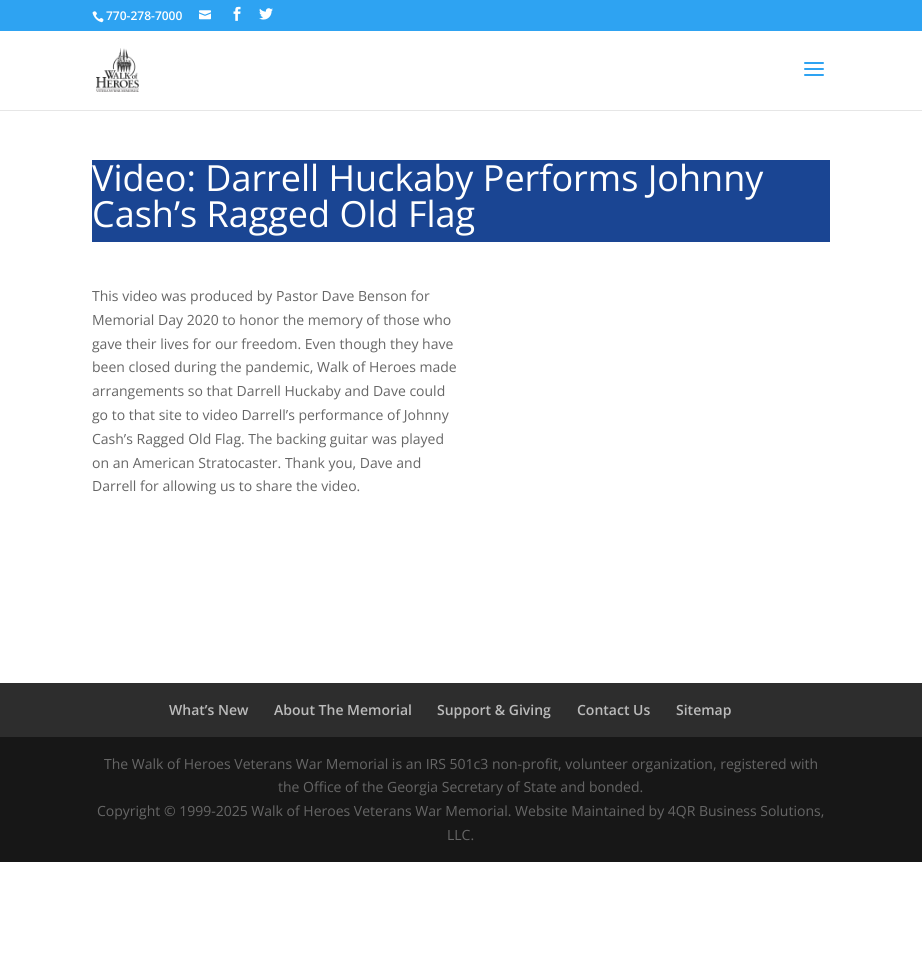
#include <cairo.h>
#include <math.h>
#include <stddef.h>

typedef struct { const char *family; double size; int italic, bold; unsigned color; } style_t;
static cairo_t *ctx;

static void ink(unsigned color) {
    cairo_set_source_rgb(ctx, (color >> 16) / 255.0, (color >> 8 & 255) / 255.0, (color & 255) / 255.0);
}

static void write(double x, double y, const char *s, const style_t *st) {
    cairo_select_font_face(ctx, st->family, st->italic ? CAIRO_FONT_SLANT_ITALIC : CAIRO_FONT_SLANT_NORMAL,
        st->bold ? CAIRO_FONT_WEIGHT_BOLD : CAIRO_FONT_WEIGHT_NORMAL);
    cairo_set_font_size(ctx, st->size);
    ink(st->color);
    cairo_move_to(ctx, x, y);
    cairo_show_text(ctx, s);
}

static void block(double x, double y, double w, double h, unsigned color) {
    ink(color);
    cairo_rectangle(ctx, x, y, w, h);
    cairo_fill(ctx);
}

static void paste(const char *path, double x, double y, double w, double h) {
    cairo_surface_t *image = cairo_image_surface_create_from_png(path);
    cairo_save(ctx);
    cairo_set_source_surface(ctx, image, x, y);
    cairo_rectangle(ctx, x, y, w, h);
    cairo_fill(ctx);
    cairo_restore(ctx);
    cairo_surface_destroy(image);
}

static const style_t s1 = {"Open Sans SemiBold", 12, 0, 0, 0xffffff};
static const style_t s2 = {"Open Sans", 36, 0, 0, 0xffffff};
static const style_t s3 = {"Open Sans", 14, 0, 0, 0x666666};
static const style_t s4 = {"Open Sans SemiBold", 14, 0, 0, 0xbbbbbb};

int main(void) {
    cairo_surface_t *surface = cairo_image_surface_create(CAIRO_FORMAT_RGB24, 922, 974);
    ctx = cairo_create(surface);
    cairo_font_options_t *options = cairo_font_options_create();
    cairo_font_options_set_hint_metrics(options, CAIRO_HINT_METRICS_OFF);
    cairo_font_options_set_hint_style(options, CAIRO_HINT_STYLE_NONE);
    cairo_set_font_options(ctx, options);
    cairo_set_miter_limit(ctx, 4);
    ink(0xffffff);
    cairo_paint(ctx);
    block(0, 0, 922, 31, 0x2ea3f2);
    paste("pic1.png", 92, 11, 12, 12);
    write(106, 20, "770-278-7000", &s1);
    paste("pic2.png", 199, 10, 12, 10);
    paste("pic3.png", 233, 6, 8, 15);
    paste("pic4.png", 259, 8, 14, 12);
    block(0, 110, 922, 1, 0xe6e6e6);
    paste("pic5.png", 96, 48, 43, 44);
    paste("pic6.png", 804, 62, 20, 14);
    block(92, 160, 738, 82, 0x1a4593);
    write(92, 191, "Video: Darrell Huckaby Performs Johnny", &s2);
    write(92, 227, "Cash’s Ragged Old Flag", &s2);
    write(92, 301, "This video was produced by Pastor Dave Benson for", &s3);
    write(92, 325, "Memorial Day 2020 to honor the memory of those who", &s3);
    write(92, 349, "gave their lives for our freedom. Even though they have", &s3);
    write(92, 372, "been closed during the pandemic, Walk of Heroes made", &s3);
    write(92, 396, "arrangements so that Darrell Huckaby and Dave could", &s3);
    write(92, 420, "go to that site to video Darrell’s performance of Johnny", &s3);
    write(92, 444, "Cash’s Ragged Old Flag. The backing guitar was played", &s3);
    write(92, 468, "on an American Stratocaster. Thank you, Dave and", &s3);
    write(92, 491, "Darrell for allowing us to share the video.", &s3);
    block(0, 683, 922, 54, 0x2d2d2d);
    write(169, 715, "What’s New", &s4);
    write(274, 715, "About The Memorial", &s4);
    write(437, 715, "Support & Giving", &s4);
    write(577, 715, "Contact Us", &s4);
    write(676, 715, "Sitemap", &s4);
    block(0, 737, 922, 125, 0x171717);
    write(104, 769, "The Walk of Heroes Veterans War Memorial is an IRS 501c3 non-profit, volunteer organization, registered with", &s3);
    write(278, 792, "the Office of the Georgia Secretary of State and bonded.", &s3);
    write(97, 816, "Copyright © 1999-2025 Walk of Heroes Veterans War Memorial. Website Maintained by 4QR Business Solutions,", &s3);
    write(447, 840, "LLC.", &s3);
    cairo_surface_write_to_png(surface, "screenshot.png");
    cairo_font_options_destroy(options);
    cairo_destroy(ctx);
    cairo_surface_destroy(surface);
    return 0;
}
